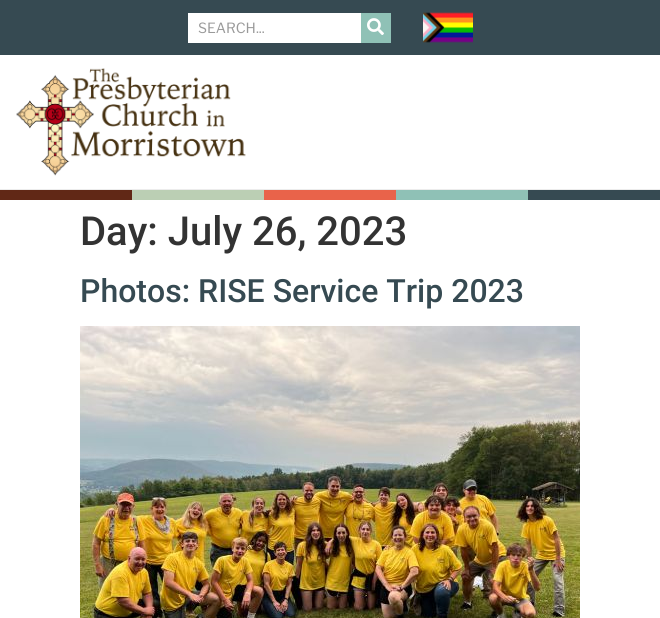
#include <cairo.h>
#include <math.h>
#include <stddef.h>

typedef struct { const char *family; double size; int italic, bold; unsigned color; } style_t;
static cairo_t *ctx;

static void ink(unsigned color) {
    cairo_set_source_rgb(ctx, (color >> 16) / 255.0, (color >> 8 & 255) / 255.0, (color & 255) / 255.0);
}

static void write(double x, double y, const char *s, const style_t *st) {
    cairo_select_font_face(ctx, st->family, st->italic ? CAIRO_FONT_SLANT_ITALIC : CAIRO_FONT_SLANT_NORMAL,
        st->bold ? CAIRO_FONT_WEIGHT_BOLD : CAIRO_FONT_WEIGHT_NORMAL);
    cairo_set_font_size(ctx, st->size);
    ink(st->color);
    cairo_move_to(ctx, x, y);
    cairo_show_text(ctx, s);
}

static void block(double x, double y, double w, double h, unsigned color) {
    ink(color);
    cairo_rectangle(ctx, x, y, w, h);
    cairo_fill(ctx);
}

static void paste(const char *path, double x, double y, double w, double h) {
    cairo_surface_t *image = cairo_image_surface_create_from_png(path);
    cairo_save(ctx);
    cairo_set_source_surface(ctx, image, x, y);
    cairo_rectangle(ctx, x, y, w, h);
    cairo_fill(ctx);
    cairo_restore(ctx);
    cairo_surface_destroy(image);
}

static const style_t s1 = {"Libre Franklin", 14, 0, 0, 0x9a9a9a};
static const style_t s2 = {"Roboto Medium", 40, 0, 0, 0x333333};
static const style_t s3 = {"Roboto Medium", 32, 0, 0, 0x364a52};

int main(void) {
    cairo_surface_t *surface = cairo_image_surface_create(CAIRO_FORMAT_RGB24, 660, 618);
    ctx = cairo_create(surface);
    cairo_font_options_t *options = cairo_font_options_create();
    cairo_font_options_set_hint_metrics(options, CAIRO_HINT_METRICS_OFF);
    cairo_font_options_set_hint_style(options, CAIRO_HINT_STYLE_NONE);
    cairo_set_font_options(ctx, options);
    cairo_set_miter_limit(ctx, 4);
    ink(0xffffff);
    cairo_paint(ctx);
    block(0, 0, 660, 55, 0x364a52);
    block(188, 13, 173, 30, 0xffffff);
    write(198, 33, "SEARCH...", &s1);
    block(361, 13, 30, 30, 0x8fc1b6);
    paste("pic1.png", 367, 18, 17, 17);
    paste("pic2.png", 423, 12, 50, 31);
    block(0, 189, 660, 1, 0xececec);
    paste("pic3.png", 16, 68, 230, 108);
    block(0, 190, 132, 10, 0x612816);
    block(132, 190, 132, 10, 0xbbcfb4);
    block(264, 190, 132, 10, 0xe9634a);
    block(396, 190, 132, 10, 0x8fc1b6);
    block(528, 190, 132, 10, 0x364a52);
    write(80, 245, "Day: July 26, 2023", &s2);
    write(80, 302, "Photos: RISE Service Trip 2023", &s3);
    paste("pic4.png", 80, 326, 500, 292);
    cairo_surface_write_to_png(surface, "screenshot.png");
    cairo_font_options_destroy(options);
    cairo_destroy(ctx);
    cairo_surface_destroy(surface);
    return 0;
}
